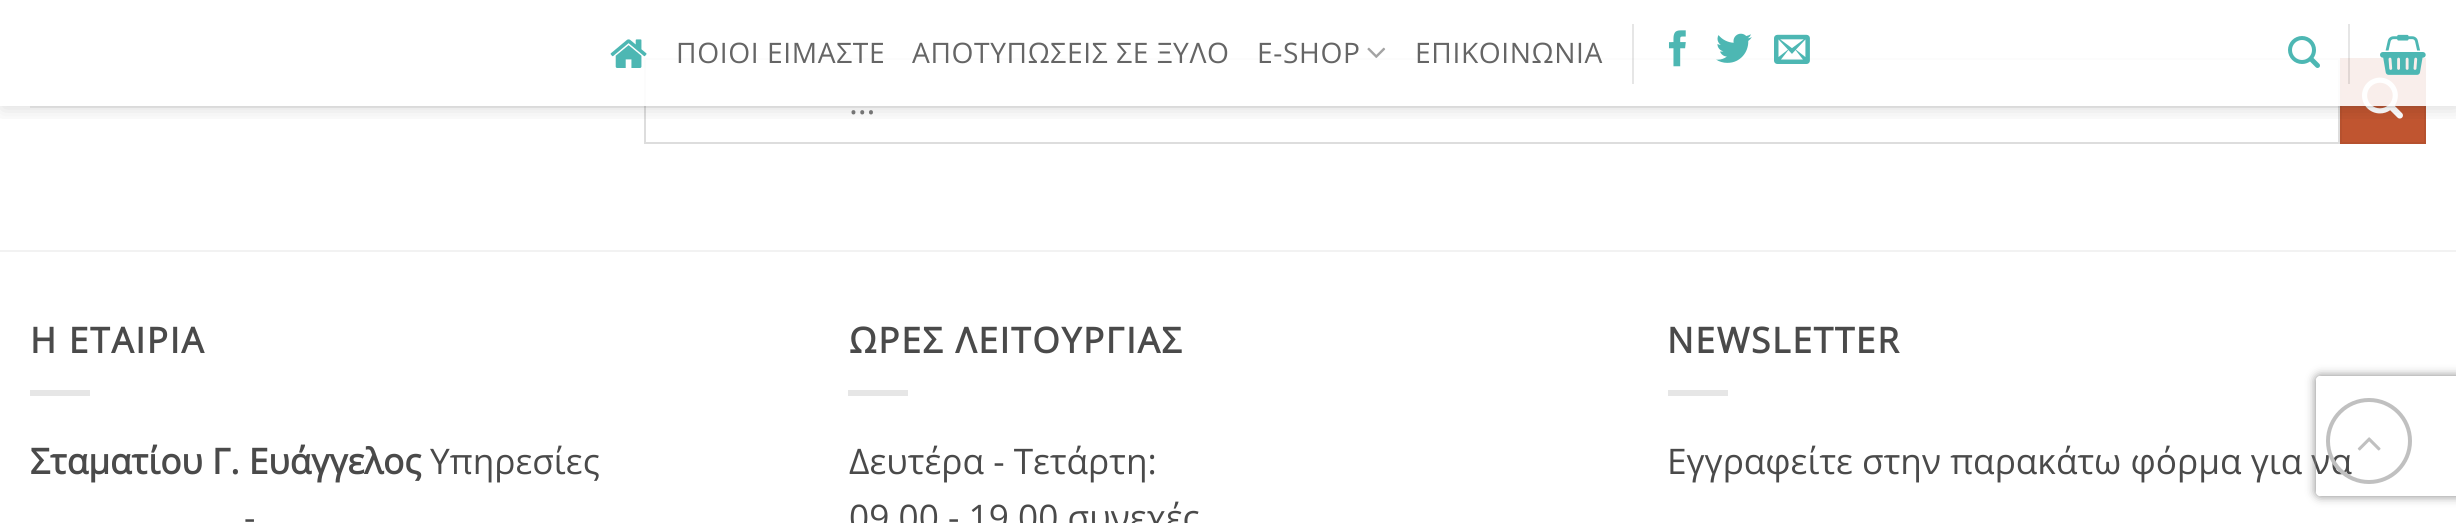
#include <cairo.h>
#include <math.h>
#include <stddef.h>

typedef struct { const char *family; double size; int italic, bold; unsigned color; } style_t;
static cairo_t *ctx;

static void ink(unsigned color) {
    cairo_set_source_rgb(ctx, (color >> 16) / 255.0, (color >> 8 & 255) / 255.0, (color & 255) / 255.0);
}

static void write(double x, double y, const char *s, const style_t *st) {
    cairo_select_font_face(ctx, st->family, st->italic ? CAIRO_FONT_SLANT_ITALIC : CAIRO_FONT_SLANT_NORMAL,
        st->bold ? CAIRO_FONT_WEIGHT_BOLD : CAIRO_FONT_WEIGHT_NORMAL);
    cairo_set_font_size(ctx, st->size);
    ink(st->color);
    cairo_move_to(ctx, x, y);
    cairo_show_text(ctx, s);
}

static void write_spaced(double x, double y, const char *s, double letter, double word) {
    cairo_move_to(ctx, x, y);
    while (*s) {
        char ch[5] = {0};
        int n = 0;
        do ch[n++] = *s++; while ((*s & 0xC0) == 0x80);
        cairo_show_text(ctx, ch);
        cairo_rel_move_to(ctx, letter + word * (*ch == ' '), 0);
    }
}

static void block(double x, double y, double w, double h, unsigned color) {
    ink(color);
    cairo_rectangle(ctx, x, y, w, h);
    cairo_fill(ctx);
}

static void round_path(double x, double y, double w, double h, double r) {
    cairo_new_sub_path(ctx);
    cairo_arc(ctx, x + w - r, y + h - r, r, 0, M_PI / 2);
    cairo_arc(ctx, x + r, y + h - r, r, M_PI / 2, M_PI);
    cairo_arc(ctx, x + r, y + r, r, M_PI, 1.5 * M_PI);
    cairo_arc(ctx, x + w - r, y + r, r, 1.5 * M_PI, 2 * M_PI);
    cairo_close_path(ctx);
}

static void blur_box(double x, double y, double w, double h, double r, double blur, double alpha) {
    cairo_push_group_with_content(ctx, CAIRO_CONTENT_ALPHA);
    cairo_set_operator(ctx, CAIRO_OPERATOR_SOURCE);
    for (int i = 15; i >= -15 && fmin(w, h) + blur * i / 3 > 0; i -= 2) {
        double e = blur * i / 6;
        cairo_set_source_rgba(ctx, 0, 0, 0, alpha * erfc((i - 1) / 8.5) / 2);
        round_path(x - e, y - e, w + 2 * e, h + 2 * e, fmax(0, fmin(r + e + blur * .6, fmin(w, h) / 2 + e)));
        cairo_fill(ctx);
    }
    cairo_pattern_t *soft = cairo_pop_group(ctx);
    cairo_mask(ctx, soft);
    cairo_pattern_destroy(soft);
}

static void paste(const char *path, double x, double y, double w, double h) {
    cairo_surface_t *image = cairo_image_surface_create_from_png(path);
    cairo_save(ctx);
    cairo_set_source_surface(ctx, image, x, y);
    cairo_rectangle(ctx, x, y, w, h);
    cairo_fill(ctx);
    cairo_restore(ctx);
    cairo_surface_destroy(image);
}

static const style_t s1 = {"Open Sans", 34, 0, 0, 0x757575};
static const style_t s2 = {"Open Sans", 35.25, 0, 1, 0x4a4a4a};
static const style_t s3 = {"Open Sans", 35.25, 0, 0, 0x4a4a4a};

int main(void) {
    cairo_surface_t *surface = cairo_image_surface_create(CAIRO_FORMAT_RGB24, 2456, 523);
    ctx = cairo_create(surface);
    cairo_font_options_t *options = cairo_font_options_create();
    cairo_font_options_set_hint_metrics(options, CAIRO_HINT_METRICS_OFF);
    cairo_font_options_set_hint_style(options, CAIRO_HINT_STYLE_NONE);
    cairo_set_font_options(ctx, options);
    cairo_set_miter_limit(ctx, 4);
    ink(0xffffff);
    cairo_paint(ctx);
    cairo_rectangle(ctx, 645, 59, 1694, 84);
    ink(0xdddddd);
    cairo_stroke(ctx);
    ink(0xc05530);
    cairo_rectangle(ctx, 2341, 59, 84, 84);
    cairo_fill_preserve(ctx);
    ink(0xb6512e);
    cairo_stroke(ctx);
    paste("pic8.png", 2362, 77, 41, 42);
    cairo_save(ctx);
    cairo_rectangle(ctx, 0, 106, 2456, 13);
    cairo_clip(ctx);
    ink(0x000000);
    blur_box(2, 2, 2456, 106, 0, 10, 0.15);
    cairo_restore(ctx);
    cairo_set_source_rgba(ctx, 1, 1, 1, 0.9);
    cairo_rectangle(ctx, 644, 58, 1782, 48);
    cairo_fill(ctx);
    paste("pic1.png", 610, 39, 37, 29);
    cairo_select_font_face(ctx, "Open Sans", CAIRO_FONT_SLANT_NORMAL, CAIRO_FONT_WEIGHT_NORMAL);
    cairo_set_font_size(ctx, 28.2);
    ink(0x656565);
    write_spaced(676, 63, "ΠΟΙΟΙ ΕΙΜΑΣΤΕ", 0.6, 0);
    write_spaced(912, 63, "ΑΠΟΤΥΠΩΣΕΙΣ ΣΕ ΞΥΛΟ", 0.6, 0);
    write_spaced(1257, 63, "E-SHOP", 0.6, 0);
    paste("pic2.png", 1367, 47, 19, 11);
    write_spaced(1415, 63, "ΕΠΙΚΟΙΝΩΝΙΑ", 0.6, 0);
    cairo_set_source_rgba(ctx, 0, 0, 0, 0.1);
    cairo_rectangle(ctx, 1632, 24, 2, 60);
    cairo_fill(ctx);
    paste("pic3.png", 1668, 30, 18, 37);
    paste("pic4.png", 1716, 33, 36, 30);
    paste("pic5.png", 1774, 34, 36, 30);
    paste("pic6.png", 2288, 36, 32, 32);
    cairo_rectangle(ctx, 2348, 24, 2, 60);
    cairo_fill(ctx);
    paste("pic7.png", 2380, 34, 46, 41);
    cairo_set_source_rgba(ctx, 0.29, 0.29, 0.29, 0.1);
    cairo_rectangle(ctx, 30, 106, 2396, 2);
    cairo_fill(ctx);
    write(849, 114, "…", &s1);
    block(0, 250, 2456, 2, 0xf2f2f2);
    cairo_select_font_face(ctx, "Open Sans", CAIRO_FONT_SLANT_NORMAL, CAIRO_FONT_WEIGHT_BOLD);
    cairo_set_font_size(ctx, 35.25);
    ink(0x4a4a4a);
    write_spaced(30, 353, "Η ΕΤΑΙΡΙΑ", 1.75, 0);
    block(30, 390, 60, 6, 0xe6e6e6);
    write(30, 474, "Σταματίου Γ. Ευάγγελος", &s2);
    write(430, 474, "Υπηρεσίες", &s3);
    write(244, 530, "-", &s3);
    cairo_select_font_face(ctx, "Open Sans", CAIRO_FONT_SLANT_NORMAL, CAIRO_FONT_WEIGHT_BOLD);
    write_spaced(849, 353, "ΩΡΕΣ ΛΕΙΤΟΥΡΓΙΑΣ", 1.75, 0);
    block(848, 390, 60, 6, 0xe6e6e6);
    write(849, 474, "Δευτέρα - Τετάρτη:", &s3);
    write(849, 530, "09.00 - 19.00 συνεχές", &s3);
    cairo_select_font_face(ctx, "Open Sans", CAIRO_FONT_SLANT_NORMAL, CAIRO_FONT_WEIGHT_BOLD);
    write_spaced(1667, 353, "NEWSLETTER", 1.75, 0);
    block(1668, 390, 60, 6, 0xe6e6e6);
    write(1667, 474, "Εγγραφείτε στην παρακάτω φόρμα για να", &s3);
    cairo_save(ctx);
    cairo_set_fill_rule(ctx, CAIRO_FILL_RULE_EVEN_ODD);
    cairo_new_path(ctx);
    cairo_move_to(ctx, 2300, 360);
    cairo_line_to(ctx, 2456, 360);
    cairo_line_to(ctx, 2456, 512);
    cairo_line_to(ctx, 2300, 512);
    cairo_close_path(ctx);
    cairo_move_to(ctx, 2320, 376);
    cairo_line_to(ctx, 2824, 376);
    cairo_curve_to(ctx, 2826, 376, 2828, 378, 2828, 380);
    cairo_line_to(ctx, 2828, 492);
    cairo_curve_to(ctx, 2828, 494, 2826, 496, 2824, 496);
    cairo_line_to(ctx, 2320, 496);
    cairo_curve_to(ctx, 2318, 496, 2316, 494, 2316, 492);
    cairo_line_to(ctx, 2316, 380);
    cairo_curve_to(ctx, 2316, 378, 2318, 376, 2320, 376);
    cairo_close_path(ctx);
    cairo_clip(ctx);
    ink(0x808080);
    blur_box(2316, 376, 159, 120, 4, 5, 1);
    cairo_restore(ctx);
    cairo_arc(ctx, 2369, 441, 41, 0, 2 * M_PI);
    ink(0xc0c0c0);
    cairo_set_line_width(ctx, 4);
    cairo_stroke(ctx);
    paste("pic9.png", 2357, 437, 24, 14);
    cairo_surface_write_to_png(surface, "screenshot.png");
    cairo_font_options_destroy(options);
    cairo_destroy(ctx);
    cairo_surface_destroy(surface);
    return 0;
}
